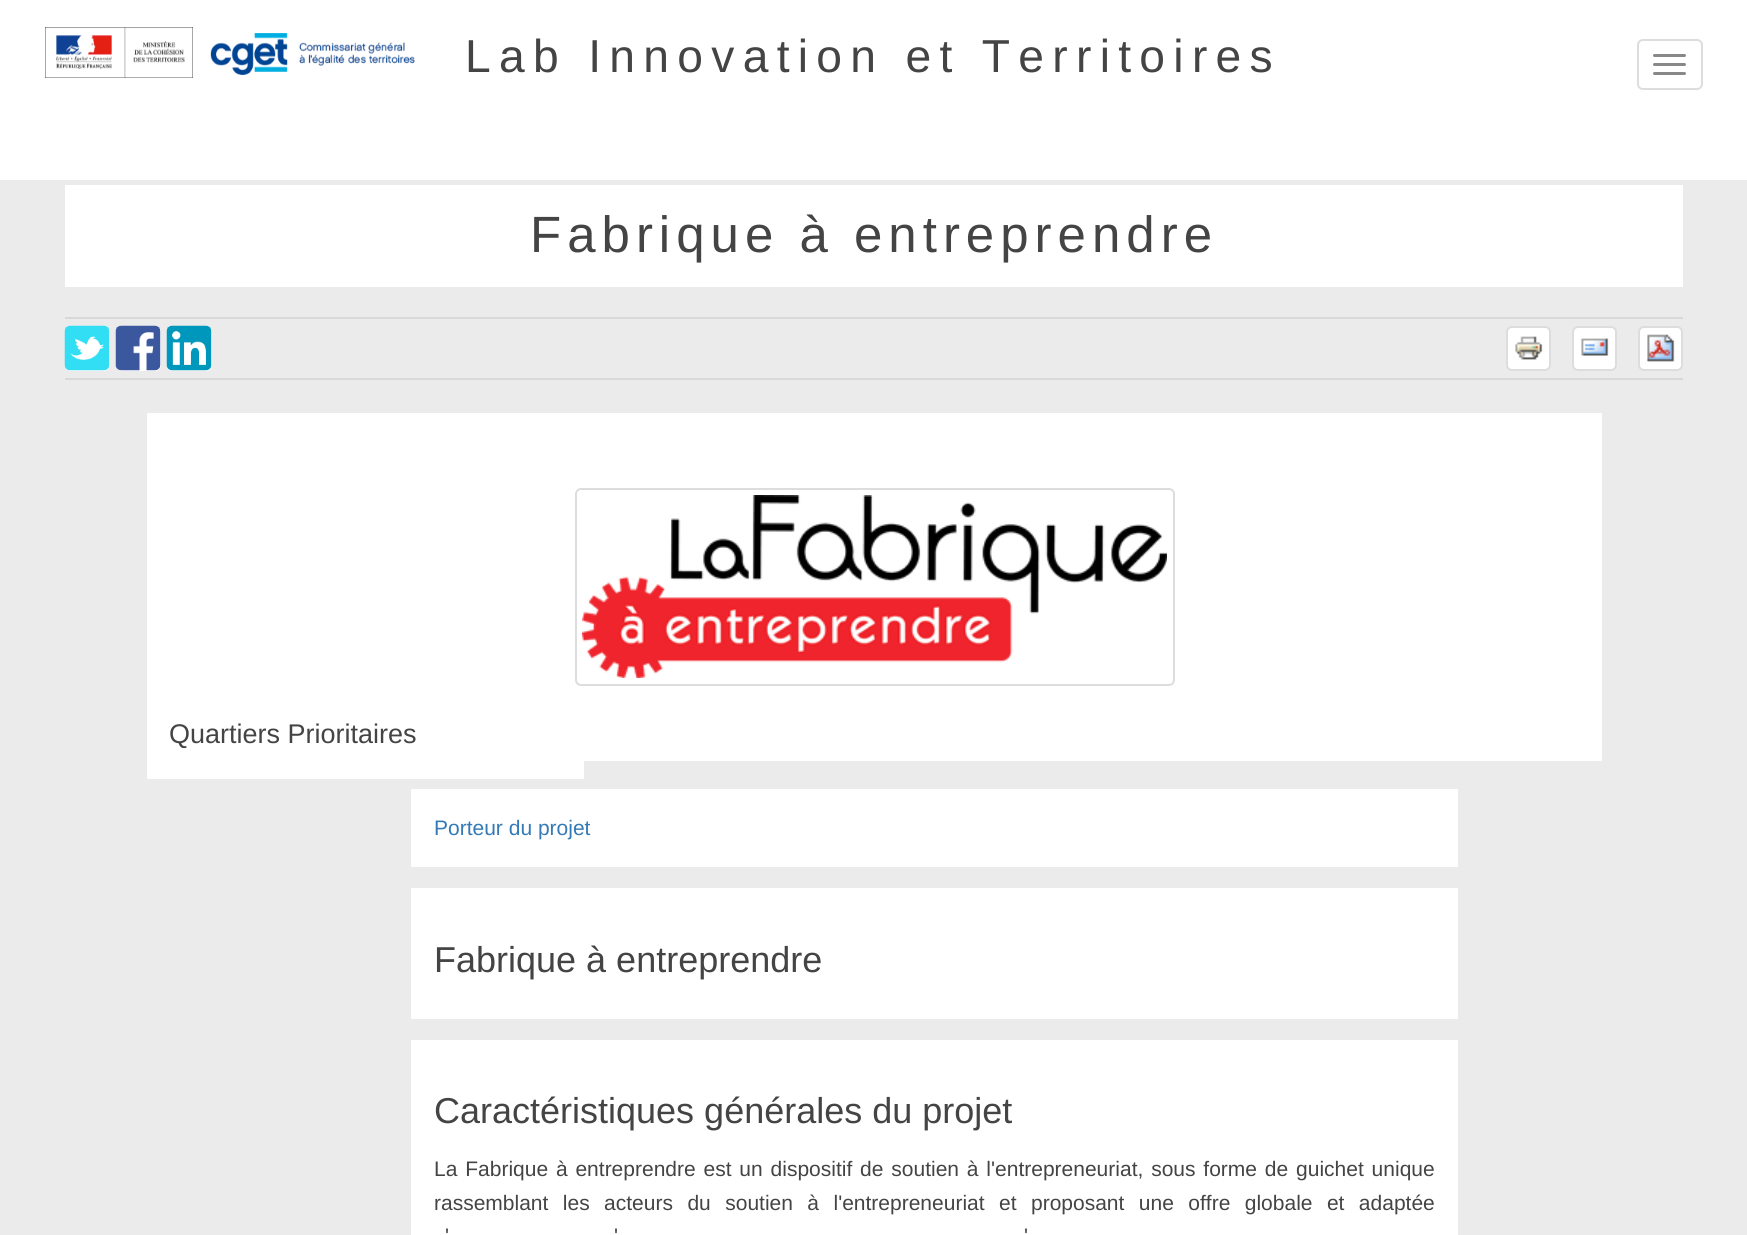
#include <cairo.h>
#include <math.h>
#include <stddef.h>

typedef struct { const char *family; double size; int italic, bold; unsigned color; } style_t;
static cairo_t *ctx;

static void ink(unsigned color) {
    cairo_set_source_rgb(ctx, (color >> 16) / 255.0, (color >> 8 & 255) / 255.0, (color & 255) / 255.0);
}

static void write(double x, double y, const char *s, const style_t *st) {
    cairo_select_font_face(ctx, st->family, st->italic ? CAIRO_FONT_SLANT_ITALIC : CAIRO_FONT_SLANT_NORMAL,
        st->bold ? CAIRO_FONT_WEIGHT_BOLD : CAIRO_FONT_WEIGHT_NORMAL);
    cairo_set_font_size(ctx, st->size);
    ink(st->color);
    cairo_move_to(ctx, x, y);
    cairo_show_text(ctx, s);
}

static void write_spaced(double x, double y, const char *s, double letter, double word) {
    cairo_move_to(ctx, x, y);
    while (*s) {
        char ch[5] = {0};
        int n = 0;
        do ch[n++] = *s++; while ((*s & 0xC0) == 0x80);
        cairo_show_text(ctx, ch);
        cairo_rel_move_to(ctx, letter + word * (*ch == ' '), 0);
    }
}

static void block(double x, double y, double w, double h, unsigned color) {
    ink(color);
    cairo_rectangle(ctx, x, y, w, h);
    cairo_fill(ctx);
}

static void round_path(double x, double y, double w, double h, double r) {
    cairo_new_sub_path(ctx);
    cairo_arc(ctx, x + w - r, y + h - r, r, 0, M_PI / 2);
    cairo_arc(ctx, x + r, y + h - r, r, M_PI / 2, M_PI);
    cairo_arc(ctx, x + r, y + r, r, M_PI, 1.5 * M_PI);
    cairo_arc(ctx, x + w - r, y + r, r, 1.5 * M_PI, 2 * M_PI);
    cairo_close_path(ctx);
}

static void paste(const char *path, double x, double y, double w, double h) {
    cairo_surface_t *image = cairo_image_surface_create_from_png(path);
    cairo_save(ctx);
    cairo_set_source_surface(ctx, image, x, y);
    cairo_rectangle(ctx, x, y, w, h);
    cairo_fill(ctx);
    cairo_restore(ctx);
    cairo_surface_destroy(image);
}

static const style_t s1 = {"Liberation Sans", 27, 0, 0, 0x444444};
static const style_t s2 = {"Liberation Sans", 21, 0, 0, 0x337ab7};
static const style_t s3 = {"Liberation Sans", 36, 0, 0, 0x444444};
static const style_t s4 = {"Liberation Sans", 21, 0, 0, 0x444444};

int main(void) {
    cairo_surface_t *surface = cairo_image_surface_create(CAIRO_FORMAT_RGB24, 1747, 1235);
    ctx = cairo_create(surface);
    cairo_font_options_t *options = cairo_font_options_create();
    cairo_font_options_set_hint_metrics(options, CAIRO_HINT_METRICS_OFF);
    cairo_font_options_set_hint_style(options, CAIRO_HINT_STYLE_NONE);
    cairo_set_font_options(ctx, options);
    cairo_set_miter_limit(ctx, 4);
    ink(0xebebeb);
    cairo_paint(ctx);
    block(0, 0, 1747, 180, 0xffffff);
    paste("pic1.png", 45, 27, 370, 51);
    cairo_select_font_face(ctx, "Liberation Sans", CAIRO_FONT_SLANT_NORMAL, CAIRO_FONT_WEIGHT_NORMAL);
    cairo_set_font_size(ctx, 46.2);
    ink(0x444444);
    write_spaced(465, 72, "Lab Innovation et Territoires", 8.3, 0);
    round_path(1638, 40, 64, 49, 5);
    ink(0xdddddd);
    cairo_stroke(ctx);
    ink(0x888888);
    round_path(1653, 54, 33, 3, 1.5);
    cairo_fill(ctx);
    round_path(1653, 63, 33, 3, 1.5);
    cairo_fill(ctx);
    round_path(1653, 72, 33, 3, 1.5);
    cairo_fill(ctx);
    block(65, 185, 1618, 102, 0xffffff);
    cairo_set_font_size(ctx, 51);
    ink(0x444444);
    write_spaced(530, 252, "Fabrique à entreprendre", 6, 0);
    block(65, 317, 1618, 2, 0xd8d8d8);
    block(65, 378, 1618, 2, 0xd8d8d8);
    ink(0xffffff);
    round_path(65, 326, 45, 45, 6);
    cairo_fill(ctx);
    paste("pic2.png", 64, 325, 46, 46);
    round_path(116, 326, 45, 45, 6);
    cairo_fill(ctx);
    paste("pic3.png", 115, 325, 46, 46);
    round_path(167, 326, 45, 45, 6);
    cairo_fill(ctx);
    paste("pic4.png", 166, 325, 46, 46);
    round_path(1507, 327, 43, 43, 5);
    cairo_fill_preserve(ctx);
    ink(0xdddddd);
    cairo_stroke(ctx);
    paste("pic5.png", 1515, 336, 28, 24);
    ink(0xffffff);
    round_path(1573, 327, 43, 43, 5);
    cairo_fill_preserve(ctx);
    ink(0xdddddd);
    cairo_stroke(ctx);
    paste("pic6.png", 1581, 338, 28, 18);
    ink(0xffffff);
    round_path(1639, 327, 43, 43, 5);
    cairo_fill_preserve(ctx);
    ink(0xdddddd);
    cairo_stroke(ctx);
    paste("pic7.png", 1647, 334, 28, 28);
    block(147, 413, 1455, 348, 0xffffff);
    round_path(576, 489, 598, 196, 5);
    ink(0xdddddd);
    cairo_stroke(ctx);
    paste("pic8.png", 582, 495, 585, 183);
    block(147, 761, 437, 18, 0xffffff);
    write(169, 743, "Quartiers Prioritaires", &s1);
    block(411, 789, 1047, 78, 0xffffff);
    write(434, 835, "Porteur du projet", &s2);
    block(411, 888, 1047, 131, 0xffffff);
    write(434, 972, "Fabrique à entreprendre", &s3);
    block(411, 1040, 1047, 195, 0xffffff);
    write(434, 1123, "Caractéristiques générales du projet", &s3);
    cairo_set_font_size(ctx, 21);
    write_spaced(434, 1176, "La Fabrique à entreprendre est un dispositif de soutien à l'entrepreneuriat, sous forme de guichet unique", 0, 2);
    write_spaced(434, 1210, "rassemblant les acteurs du soutien à l'entrepreneuriat et proposant une offre globale et adaptée", 0, 8.6);
    write(445, 1243, "'", &s4);
    write(614, 1243, "'", &s4);
    write(1024, 1243, "'", &s4);
    cairo_surface_write_to_png(surface, "screenshot.png");
    cairo_font_options_destroy(options);
    cairo_destroy(ctx);
    cairo_surface_destroy(surface);
    return 0;
}
